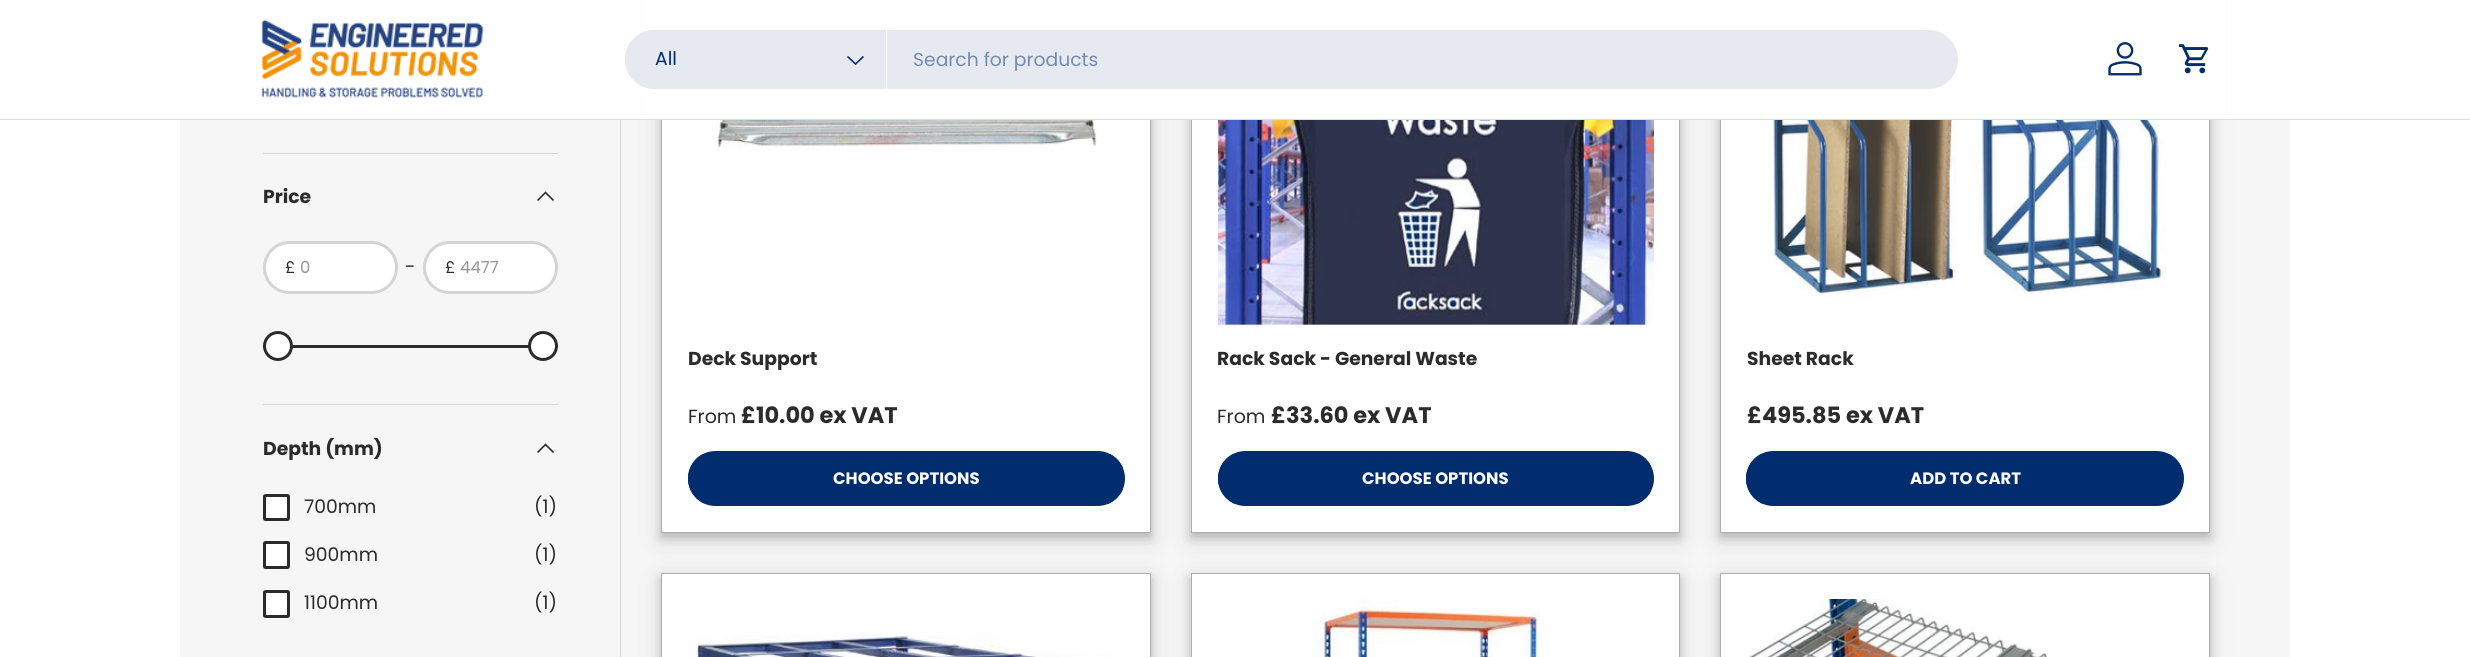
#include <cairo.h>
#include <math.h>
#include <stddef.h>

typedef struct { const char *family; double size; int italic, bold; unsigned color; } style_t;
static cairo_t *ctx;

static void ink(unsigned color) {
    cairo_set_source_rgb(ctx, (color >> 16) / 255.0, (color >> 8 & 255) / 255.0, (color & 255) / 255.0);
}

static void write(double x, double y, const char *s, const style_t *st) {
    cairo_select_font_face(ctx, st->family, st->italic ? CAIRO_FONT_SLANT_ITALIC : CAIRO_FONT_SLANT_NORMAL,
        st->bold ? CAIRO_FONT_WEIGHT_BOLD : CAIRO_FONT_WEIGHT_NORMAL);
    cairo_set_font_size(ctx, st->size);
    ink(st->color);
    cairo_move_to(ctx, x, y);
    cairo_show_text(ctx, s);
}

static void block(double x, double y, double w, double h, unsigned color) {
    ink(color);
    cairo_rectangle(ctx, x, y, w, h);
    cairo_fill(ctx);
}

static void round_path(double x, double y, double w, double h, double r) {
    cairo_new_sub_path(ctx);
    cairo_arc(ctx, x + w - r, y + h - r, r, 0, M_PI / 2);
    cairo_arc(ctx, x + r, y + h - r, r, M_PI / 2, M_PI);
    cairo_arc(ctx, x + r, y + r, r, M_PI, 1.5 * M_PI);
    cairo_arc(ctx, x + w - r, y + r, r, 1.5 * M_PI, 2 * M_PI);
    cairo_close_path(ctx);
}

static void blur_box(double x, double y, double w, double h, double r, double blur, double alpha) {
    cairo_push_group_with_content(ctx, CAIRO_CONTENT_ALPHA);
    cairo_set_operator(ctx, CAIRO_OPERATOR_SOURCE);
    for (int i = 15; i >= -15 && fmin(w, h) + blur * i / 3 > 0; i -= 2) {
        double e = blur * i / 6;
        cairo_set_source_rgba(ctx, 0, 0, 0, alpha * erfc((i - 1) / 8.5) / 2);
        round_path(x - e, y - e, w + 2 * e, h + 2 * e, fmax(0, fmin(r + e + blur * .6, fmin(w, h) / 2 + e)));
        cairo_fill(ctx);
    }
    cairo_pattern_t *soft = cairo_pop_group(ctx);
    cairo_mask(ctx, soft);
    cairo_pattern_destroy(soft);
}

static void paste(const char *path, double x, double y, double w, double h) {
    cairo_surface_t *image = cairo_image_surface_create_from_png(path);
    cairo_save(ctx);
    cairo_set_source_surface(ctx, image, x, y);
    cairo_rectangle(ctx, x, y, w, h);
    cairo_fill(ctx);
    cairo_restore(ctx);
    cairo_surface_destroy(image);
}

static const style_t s1 = {"Poppins", 18.75, 0, 0, 0x012c6d};
static const style_t s2 = {"Poppins", 18.75, 0, 0, 0x748baf};
static const style_t s3 = {"Poppins", 18.75, 0, 1, 0x2a2b2a};
static const style_t s4 = {"Poppins", 16.5, 0, 0, 0x2a2b2a};
static const style_t s5 = {"Poppins", 16.5, 0, 0, 0x959595};
static const style_t s6 = {"Poppins", 18.75, 0, 0, 0x2a2b2a};
static const style_t s7 = {"Poppins", 19, 0, 0, 0x2a2b2a};
static const style_t s8 = {"Poppins", 22.5, 0, 1, 0x2a2b2a};
static const style_t s9 = {"Poppins", 16.5, 0, 1, 0xffffff};

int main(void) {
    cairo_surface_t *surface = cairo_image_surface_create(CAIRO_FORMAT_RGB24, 2470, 657);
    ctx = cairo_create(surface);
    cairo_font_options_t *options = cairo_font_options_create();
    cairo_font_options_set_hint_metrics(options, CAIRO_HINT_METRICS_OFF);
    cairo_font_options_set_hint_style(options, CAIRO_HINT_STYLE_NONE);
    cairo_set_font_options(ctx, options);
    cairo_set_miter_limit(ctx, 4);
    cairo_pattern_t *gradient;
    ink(0xffffff);
    cairo_paint(ctx);
    block(180, 120, 2110, 537, 0xf6f6f6);
    ink(0x000000);
    blur_box(661, -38, 490, 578, 0, 12.5, 0.1);
    blur_box(661, -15, 490, 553, 0, 5, 0.2);
    block(662, 120, 488, 412, 0xffffff);
    cairo_rectangle(ctx, 661.5, -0.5, 489, 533);
    ink(0xafafaf);
    cairo_set_line_width(ctx, 1);
    cairo_stroke(ctx);
    ink(0x000000);
    blur_box(1191, -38, 489, 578, 0, 12.5, 0.1);
    blur_box(1191, -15, 489, 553, 0, 5, 0.2);
    block(1192, 120, 487, 412, 0xffffff);
    cairo_rectangle(ctx, 1191.5, -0.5, 488, 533);
    ink(0xafafaf);
    cairo_stroke(ctx);
    ink(0x000000);
    blur_box(1720, -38, 490, 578, 0, 12.5, 0.1);
    blur_box(1720, -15, 490, 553, 0, 5, 0.2);
    block(1721, 120, 488, 412, 0xffffff);
    cairo_rectangle(ctx, 1720.5, -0.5, 489, 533);
    ink(0xafafaf);
    cairo_stroke(ctx);
    block(645, 0, 1581, 119, 0xffffff);
    block(0, 119, 2470, 1, 0xd9dfe9);
    paste("pic1.png", 261, 19, 223, 79);
    ink(0xe6eaf0);
    round_path(625, 30, 1333, 59, 29.5);
    cairo_fill(ctx);
    cairo_new_path(ctx);
    cairo_move_to(ctx, 654.5, 30);
    cairo_line_to(ctx, 888, 30);
    cairo_line_to(ctx, 888, 89);
    cairo_line_to(ctx, 654.5, 89);
    cairo_curve_to(ctx, 638, 89, 625, 76, 625, 59.5);
    cairo_curve_to(ctx, 625, 43, 638, 30, 654.5, 30);
    cairo_close_path(ctx);
    cairo_fill(ctx);
    block(886, 30, 1, 59, 0xffffff);
    write(655, 65, "All", &s1);
    cairo_new_path(ctx);
    cairo_move_to(ctx, 863.5, 56.5);
    cairo_line_to(ctx, 855.5, 64);
    cairo_line_to(ctx, 847.5, 56.5);
    cairo_set_line_width(ctx, 1.6);
    cairo_stroke(ctx);
    write(913, 66, "Search for products", &s2);
    paste("pic2.png", 2108, 42, 34, 34);
    paste("pic3.png", 2178, 44, 31, 30);
    block(620, 120, 1, 537, 0xd7d8d7);
    block(263, 153, 295, 1, 0xd7d8d7);
    block(263, 404, 295, 1, 0xd7d8d7);
    write(263, 203, "Price", &s3);
    cairo_new_path(ctx);
    cairo_move_to(ctx, 553.5, 200.5);
    cairo_line_to(ctx, 545.5, 192.5);
    cairo_line_to(ctx, 537.5, 200.5);
    cairo_stroke(ctx);
    ink(0xffffff);
    round_path(263, 241, 135, 53, 26.5);
    cairo_fill(ctx);
    round_path(264.5, 242.5, 132, 50, 25);
    cairo_set_source_rgba(ctx, 0.165, 0.169, 0.165, 0.2);
    cairo_set_line_width(ctx, 3);
    cairo_stroke(ctx);
    write(285, 273, "£", &s4);
    write(300, 273, "0", &s5);
    write(405, 273, "-", &s6);
    ink(0xffffff);
    round_path(423, 241, 135, 53, 26.5);
    cairo_fill(ctx);
    round_path(424.5, 242.5, 132, 50, 25);
    cairo_set_source_rgba(ctx, 0.165, 0.169, 0.165, 0.2);
    cairo_stroke(ctx);
    write(445, 273, "£", &s4);
    write(460, 273, "4477", &s5);
    block(263, 345, 295, 3, 0x2a2b2a);
    ink(0xffffff);
    cairo_new_path(ctx);
    cairo_arc(ctx, 278, 346, 13.5, 0, 2 * M_PI);
    cairo_fill_preserve(ctx);
    ink(0x2a2b2a);
    cairo_stroke(ctx);
    ink(0xffffff);
    cairo_arc(ctx, 543, 346, 13.5, 0, 2 * M_PI);
    cairo_fill_preserve(ctx);
    ink(0x2a2b2a);
    cairo_stroke(ctx);
    write(263, 455, "Depth (mm)", &s3);
    cairo_new_path(ctx);
    cairo_move_to(ctx, 553.5, 452.5);
    cairo_line_to(ctx, 545.5, 444.5);
    cairo_line_to(ctx, 537.5, 452.5);
    cairo_set_line_width(ctx, 1.6);
    cairo_stroke(ctx);
    ink(0xffffff);
    round_path(264.5, 495.5, 24, 24, 1);
    cairo_fill_preserve(ctx);
    ink(0x2a2b2a);
    cairo_set_line_width(ctx, 3);
    cairo_stroke(ctx);
    write(304, 513, "700mm", &s6);
    write(534, 513, "(1)", &s6);
    ink(0xffffff);
    round_path(264.5, 542.5, 24, 25, 1);
    cairo_fill_preserve(ctx);
    ink(0x2a2b2a);
    cairo_stroke(ctx);
    write(304, 561, "900mm", &s6);
    write(534, 561, "(1)", &s6);
    ink(0xffffff);
    round_path(264.5, 591.5, 24, 25, 1);
    cairo_fill_preserve(ctx);
    ink(0x2a2b2a);
    cairo_stroke(ctx);
    write(304, 609, "1100mm", &s6);
    write(534, 609, "(1)", &s6);
    paste("pic4.png", 715, 120, 384, 30);
    write(688, 365, "Deck Support", &s3);
    write(688, 423, "From", &s7);
    write(741, 423, "£10.00 ex VAT", &s8);
    cairo_save(ctx);
    round_path(688, 451, 437, 55, 27.5);
    cairo_clip(ctx);
    gradient = cairo_pattern_create_linear(-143, 325, 1090, 632);
    cairo_pattern_add_color_stop_rgba(gradient, 0.6, 0.169, 0.325, 0.561, 1);
    cairo_pattern_add_color_stop_rgba(gradient, 0.6, 0.004, 0.173, 0.427, 1);
    cairo_pattern_add_color_stop_rgba(gradient, 1, 0.004, 0.173, 0.427, 1);
    cairo_set_source(ctx, gradient);
    cairo_pattern_destroy(gradient);
    cairo_rectangle(ctx, 688, 454, 435, 50);
    cairo_fill(ctx);
    cairo_restore(ctx);
    round_path(689.5, 452.5, 434, 52, 26);
    ink(0x012c6d);
    cairo_stroke(ctx);
    write(833, 484, "CHOOSE OPTIONS", &s9);
    paste("pic5.png", 1218, 120, 436, 205);
    write(1217, 365, "Rack Sack - General Waste", &s3);
    write(1217, 423, "From", &s7);
    write(1271, 423, "£33.60 ex VAT", &s8);
    cairo_save(ctx);
    round_path(1218, 451, 436, 55, 27.5);
    cairo_clip(ctx);
    gradient = cairo_pattern_create_linear(389, 325, 1619, 632);
    cairo_pattern_add_color_stop_rgba(gradient, 0.6, 0.169, 0.325, 0.561, 1);
    cairo_pattern_add_color_stop_rgba(gradient, 0.6, 0.004, 0.173, 0.427, 1);
    cairo_pattern_add_color_stop_rgba(gradient, 1, 0.004, 0.173, 0.427, 1);
    cairo_set_source(ctx, gradient);
    cairo_pattern_destroy(gradient);
    cairo_rectangle(ctx, 1218, 454, 433, 50);
    cairo_fill(ctx);
    cairo_restore(ctx);
    round_path(1219.5, 452.5, 433, 52, 26);
    ink(0x012c6d);
    cairo_stroke(ctx);
    write(1362, 484, "CHOOSE OPTIONS", &s9);
    paste("pic6.png", 1771, 120, 395, 175);
    write(1747, 365, "Sheet Rack", &s3);
    write(1747, 423, "£495.85 ex VAT", &s8);
    cairo_save(ctx);
    round_path(1746, 451, 438, 55, 27.5);
    cairo_clip(ctx);
    gradient = cairo_pattern_create_linear(916, 325, 2149, 632);
    cairo_pattern_add_color_stop_rgba(gradient, 0.6, 0.169, 0.325, 0.561, 1);
    cairo_pattern_add_color_stop_rgba(gradient, 0.6, 0.004, 0.173, 0.427, 1);
    cairo_pattern_add_color_stop_rgba(gradient, 1, 0.004, 0.173, 0.427, 1);
    cairo_set_source(ctx, gradient);
    cairo_pattern_destroy(gradient);
    cairo_rectangle(ctx, 1746, 454, 435, 50);
    cairo_fill(ctx);
    cairo_restore(ctx);
    round_path(1747.5, 452.5, 435, 52, 26);
    ink(0x012c6d);
    cairo_stroke(ctx);
    write(1910, 484, "ADD TO CART", &s9);
    ink(0x000000);
    blur_box(661, 580, 490, 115, 0, 12.5, 0.1);
    blur_box(661, 578, 490, 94, 0, 5, 0.2);
    ink(0xffffff);
    cairo_rectangle(ctx, 661.5, 573.5, 489, 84);
    cairo_fill_preserve(ctx);
    ink(0xafafaf);
    cairo_set_line_width(ctx, 1);
    cairo_stroke(ctx);
    paste("pic7.png", 691, 635, 420, 22);
    ink(0x000000);
    blur_box(1191, 580, 489, 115, 0, 12.5, 0.1);
    blur_box(1191, 578, 489, 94, 0, 5, 0.2);
    ink(0xffffff);
    cairo_rectangle(ctx, 1191.5, 573.5, 488, 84);
    cairo_fill_preserve(ctx);
    ink(0xafafaf);
    cairo_stroke(ctx);
    paste("pic8.png", 1314, 599, 226, 58);
    ink(0x000000);
    blur_box(1720, 580, 490, 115, 0, 12.5, 0.1);
    blur_box(1720, 578, 490, 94, 0, 5, 0.2);
    ink(0xffffff);
    cairo_rectangle(ctx, 1720.5, 573.5, 489, 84);
    cairo_fill_preserve(ctx);
    ink(0xafafaf);
    cairo_stroke(ctx);
    paste("pic9.png", 1746, 599, 302, 58);
    cairo_surface_write_to_png(surface, "screenshot.png");
    cairo_font_options_destroy(options);
    cairo_destroy(ctx);
    cairo_surface_destroy(surface);
    return 0;
}
